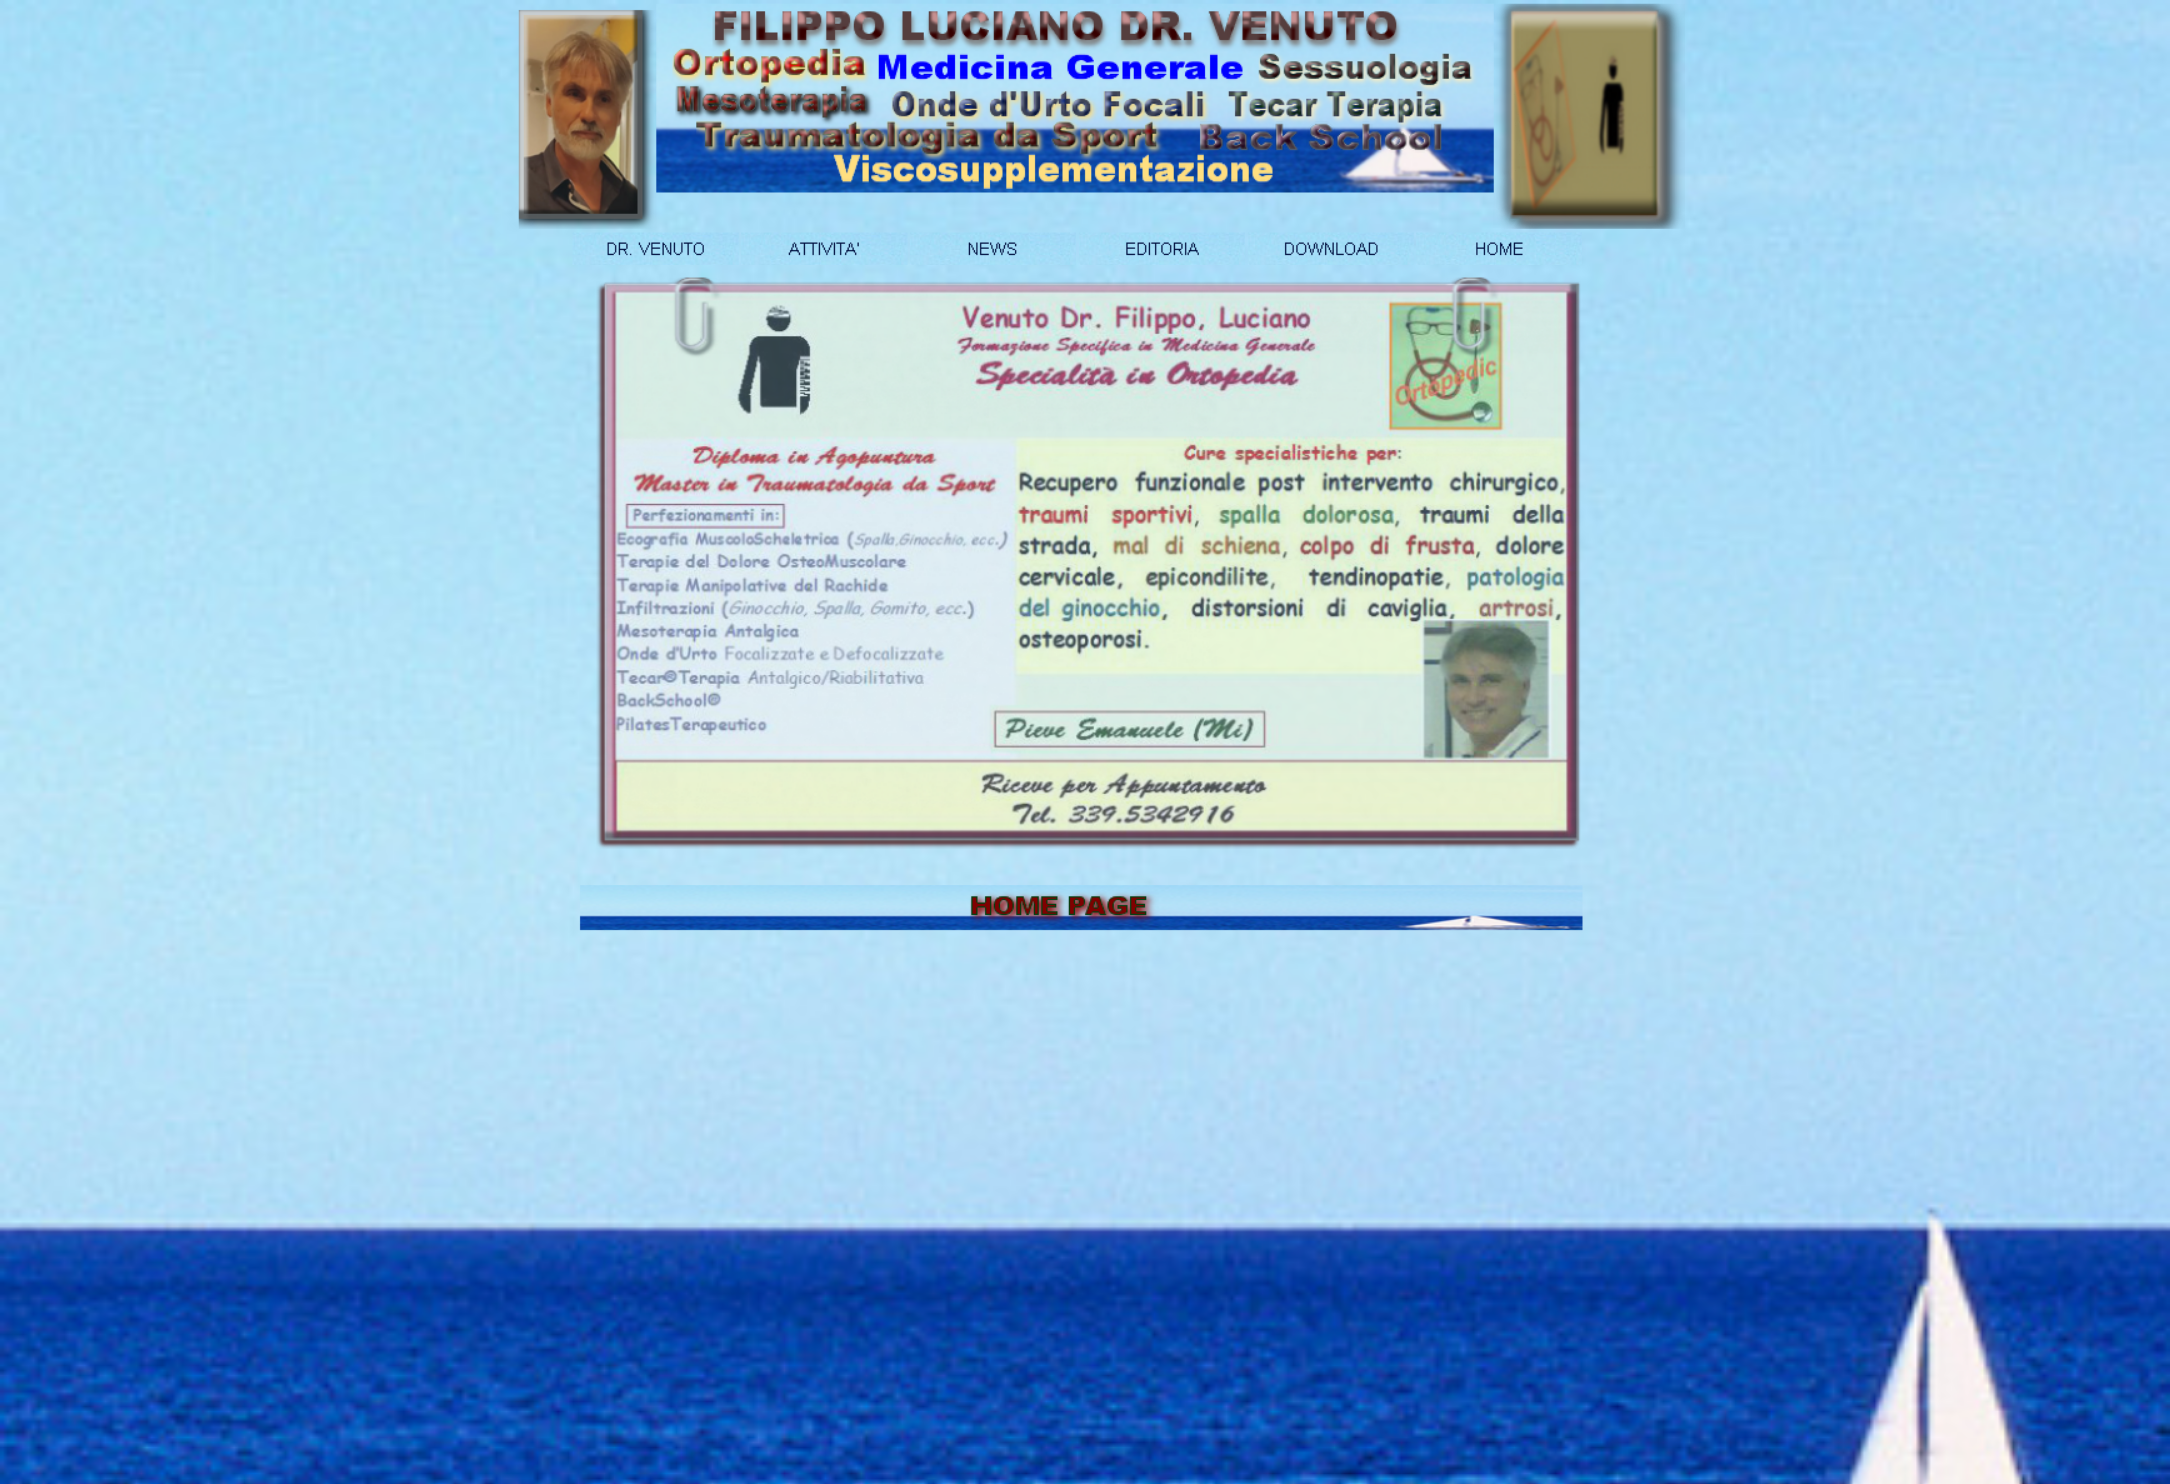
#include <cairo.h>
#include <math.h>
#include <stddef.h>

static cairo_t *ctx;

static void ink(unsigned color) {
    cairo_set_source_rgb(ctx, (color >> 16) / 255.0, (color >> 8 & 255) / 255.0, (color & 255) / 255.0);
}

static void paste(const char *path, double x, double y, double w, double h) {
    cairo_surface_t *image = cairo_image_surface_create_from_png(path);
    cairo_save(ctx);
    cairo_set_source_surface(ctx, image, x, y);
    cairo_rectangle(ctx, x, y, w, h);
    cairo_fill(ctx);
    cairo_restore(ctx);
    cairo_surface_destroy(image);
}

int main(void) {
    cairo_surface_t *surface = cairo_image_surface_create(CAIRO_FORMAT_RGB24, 2170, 1484);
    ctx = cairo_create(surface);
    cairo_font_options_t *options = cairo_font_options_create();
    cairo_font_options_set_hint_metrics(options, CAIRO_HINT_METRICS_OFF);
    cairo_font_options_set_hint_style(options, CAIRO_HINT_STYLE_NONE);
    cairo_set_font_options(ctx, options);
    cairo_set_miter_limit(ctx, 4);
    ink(0xffffff);
    cairo_paint(ctx);
    paste("pic1.png", 0, 0, 2170, 1484);
    paste("pic2.png", 518, 3, 1167, 226);
    paste("pic3.png", 572, 232, 167, 33);
    paste("pic4.png", 741, 232, 167, 33);
    paste("pic5.png", 910, 232, 166, 33);
    paste("pic6.png", 1079, 232, 166, 33);
    paste("pic7.png", 1248, 232, 166, 33);
    paste("pic8.png", 1416, 232, 166, 33);
    paste("pic9.png", 596, 277, 985, 572);
    paste("pic10.png", 579, 885, 1004, 46);
    cairo_surface_write_to_png(surface, "screenshot.png");
    cairo_font_options_destroy(options);
    cairo_destroy(ctx);
    cairo_surface_destroy(surface);
    return 0;
}
